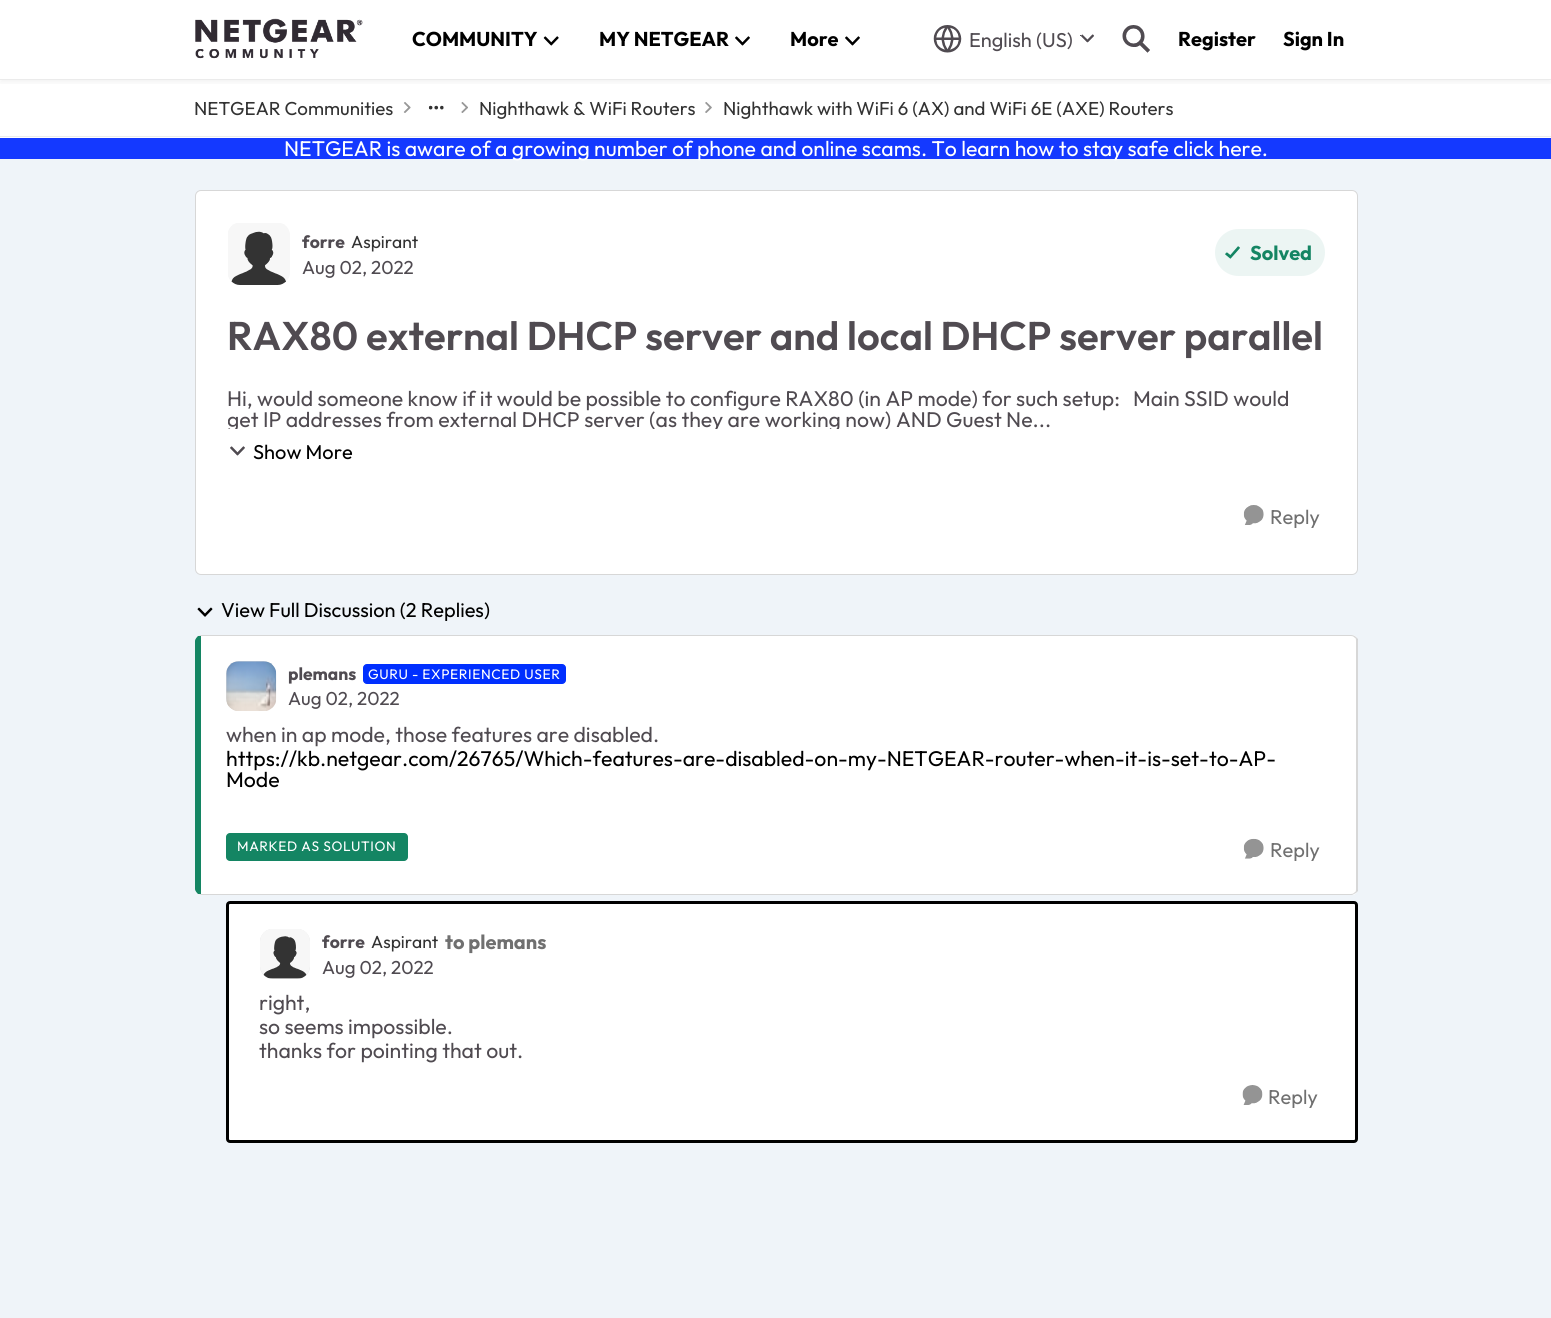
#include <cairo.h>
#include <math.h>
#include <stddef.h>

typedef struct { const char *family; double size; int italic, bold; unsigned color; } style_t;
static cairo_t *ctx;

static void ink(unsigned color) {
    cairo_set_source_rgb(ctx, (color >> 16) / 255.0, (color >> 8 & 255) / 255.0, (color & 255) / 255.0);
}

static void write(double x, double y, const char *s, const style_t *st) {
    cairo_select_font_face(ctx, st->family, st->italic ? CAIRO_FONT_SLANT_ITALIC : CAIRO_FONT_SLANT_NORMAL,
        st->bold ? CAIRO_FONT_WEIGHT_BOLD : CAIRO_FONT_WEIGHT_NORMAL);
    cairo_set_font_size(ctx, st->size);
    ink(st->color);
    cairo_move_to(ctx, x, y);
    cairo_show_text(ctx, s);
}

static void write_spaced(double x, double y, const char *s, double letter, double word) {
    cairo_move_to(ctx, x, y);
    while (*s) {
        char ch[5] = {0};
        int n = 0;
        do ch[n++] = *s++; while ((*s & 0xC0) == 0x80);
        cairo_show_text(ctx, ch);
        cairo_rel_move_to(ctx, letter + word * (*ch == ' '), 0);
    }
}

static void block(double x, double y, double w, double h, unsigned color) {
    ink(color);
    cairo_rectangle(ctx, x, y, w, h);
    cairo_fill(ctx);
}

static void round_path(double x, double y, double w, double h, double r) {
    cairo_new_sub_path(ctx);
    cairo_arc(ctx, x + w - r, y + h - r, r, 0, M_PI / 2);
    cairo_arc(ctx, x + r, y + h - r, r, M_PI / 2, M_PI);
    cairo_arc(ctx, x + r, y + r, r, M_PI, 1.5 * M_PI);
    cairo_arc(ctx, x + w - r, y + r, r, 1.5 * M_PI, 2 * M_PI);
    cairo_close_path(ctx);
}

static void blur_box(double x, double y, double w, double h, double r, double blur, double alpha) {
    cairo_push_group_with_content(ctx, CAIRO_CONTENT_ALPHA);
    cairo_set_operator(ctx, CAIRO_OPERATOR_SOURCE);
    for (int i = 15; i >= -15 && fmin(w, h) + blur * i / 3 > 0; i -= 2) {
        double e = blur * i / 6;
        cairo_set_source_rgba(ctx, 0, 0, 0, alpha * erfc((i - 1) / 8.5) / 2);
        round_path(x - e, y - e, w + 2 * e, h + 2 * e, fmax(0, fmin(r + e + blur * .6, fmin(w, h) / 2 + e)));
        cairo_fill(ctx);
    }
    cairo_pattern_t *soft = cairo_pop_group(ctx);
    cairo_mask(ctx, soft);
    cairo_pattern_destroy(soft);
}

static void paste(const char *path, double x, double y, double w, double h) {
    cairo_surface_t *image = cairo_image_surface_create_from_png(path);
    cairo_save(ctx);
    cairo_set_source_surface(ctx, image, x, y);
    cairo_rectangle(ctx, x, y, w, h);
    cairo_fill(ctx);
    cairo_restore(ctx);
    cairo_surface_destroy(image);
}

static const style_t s1 = {"Outfit", 20, 0, 1, 0x000000};
static const style_t s2 = {"Outfit", 20, 0, 0, 0x504b51};
static const style_t s3 = {"Outfit", 18.75, 0, 0, 0x333333};
static const style_t s4 = {"Outfit", 21.25, 0, 0, 0xffffff};
static const style_t s5 = {"Outfit", 17.5, 0, 1, 0x504b51};
static const style_t s6 = {"Outfit", 17.5, 0, 0, 0x333333};
static const style_t s7 = {"Outfit", 18.75, 0, 0, 0x504b51};
static const style_t s8 = {"Outfit", 20, 0, 1, 0x148563};
static const style_t s9 = {"Outfit SemiBold", 40, 0, 0, 0x504b51};
static const style_t s10 = {"Outfit", 21.25, 0, 0, 0x504b51};
static const style_t s11 = {"Outfit", 20, 0, 0, 0x000000};
static const style_t s12 = {"Outfit", 20, 0, 0, 0x707070};
static const style_t s13 = {"Outfit", 21.25, 0, 0, 0x000000};
static const style_t s14 = {"Outfit", 20, 0, 1, 0x707070};

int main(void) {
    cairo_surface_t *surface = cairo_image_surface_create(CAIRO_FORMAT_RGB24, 1551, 1318);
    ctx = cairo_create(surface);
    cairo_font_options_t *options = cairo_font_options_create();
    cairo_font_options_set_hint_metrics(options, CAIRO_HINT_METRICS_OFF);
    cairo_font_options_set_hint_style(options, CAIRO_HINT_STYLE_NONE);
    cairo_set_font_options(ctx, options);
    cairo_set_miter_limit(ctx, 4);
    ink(0xeff4f9);
    cairo_paint(ctx);
    block(0, 0, 1551, 138, 0xffffff);
    cairo_save(ctx);
    cairo_rectangle(ctx, 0, 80, 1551, 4);
    cairo_clip(ctx);
    ink(0x333333);
    blur_box(0, 3, 1551, 80, 0, 2.5, 0.06);
    cairo_restore(ctx);
    block(0, 79, 1551, 1, 0xebebeb);
    paste("pic1.png", 195, 18, 168, 41);
    write(412, 46, "COMMUNITY", &s1);
    paste("pic2.png", 543, 36, 16, 10);
    write(599, 46, "MY NETGEAR", &s1);
    paste("pic3.png", 735, 36, 15, 10);
    write(790, 46, "More", &s1);
    paste("pic3.png", 845, 36, 15, 10);
    paste("pic4.png", 933, 25, 29, 28);
    write(969, 47, "English (US)", &s2);
    paste("pic5.png", 1080, 34, 14, 9);
    paste("pic6.png", 1122, 25, 28, 28);
    write(1178, 46, "Register", &s1);
    write(1283, 46, "Sign In", &s1);
    block(0, 136, 1551, 1, 0xebebeb);
    write(194, 115, "NETGEAR Communities", &s3);
    paste("pic7.png", 403, 102, 8, 11);
    paste("pic8.png", 428, 105, 16, 5);
    paste("pic9.png", 461, 102, 7, 11);
    write(479, 115, "Nighthawk & WiFi Routers", &s3);
    paste("pic10.png", 705, 102, 7, 11);
    write(723, 115, "Nighthawk with WiFi 6 (AX) and WiFi 6E (AXE) Routers", &s3);
    block(0, 138, 1551, 21, 0x1439ff);
    write(284, 156, "NETGEAR is aware of a growing number of phone and online scams. To learn how to stay safe click here.", &s4);
    round_path(195, 190, 1163, 385, 6);
    cairo_fill(ctx);
    round_path(195.5, 190.5, 1162, 384, 5.5);
    cairo_set_source_rgba(ctx, 0, 0, 0, 0.16);
    cairo_set_line_width(ctx, 1);
    cairo_stroke(ctx);
    paste("pic11.png", 228, 223, 62, 62);
    write(302, 248, "forre", &s5);
    write(351, 248, "Aspirant", &s6);
    write(302, 274, "Aug 02, 2022", &s7);
    ink(0xecf5f3);
    round_path(1215, 229, 110, 47, 23.5);
    cairo_fill(ctx);
    paste("pic12.png", 1225, 246, 15, 13);
    write(1250, 260, "Solved", &s8);
    write(227, 350, "RAX80 external DHCP server and local DHCP server parallel", &s9);
    write(227, 406, "Hi, would someone know if it would be possible to configure RAX80 (in AP mode) for such setup:", &s10);
    write(1133, 406, "Main SSID would", &s10);
    cairo_save(ctx);
    cairo_rectangle(ctx, 228, 386, 1097, 43);
    cairo_clip(ctx);
    write(227, 427, "get IP addresses from external DHCP server (as they are working now)", &s10);
    cairo_restore(ctx);
    write(896, 427, "AND Guest Ne...", &s10);
    paste("pic13.png", 230, 446, 15, 10);
    write(253, 459, "Show More", &s11);
    paste("pic14.png", 1243, 505, 21, 20);
    write(1270, 524, "Reply", &s12);
    paste("pic15.png", 197, 607, 16, 10);
    write(221, 617, "View Full Discussion (2 Replies)", &s11);
    ink(0xffffff);
    round_path(195, 635, 1163, 260, 6);
    cairo_fill(ctx);
    cairo_set_source_rgba(ctx, 0, 0, 0, 0.16);
    cairo_new_path(ctx);
    cairo_move_to(ctx, 201, 635);
    cairo_line_to(ctx, 198, 636);
    cairo_line_to(ctx, 201, 636);
    cairo_line_to(ctx, 1351, 636);
    cairo_curve_to(ctx, 1353, 636, 1354, 637, 1355, 638);
    cairo_line_to(ctx, 1356, 637);
    cairo_curve_to(ctx, 1355, 636, 1353, 635, 1351, 635);
    cairo_close_path(ctx);
    cairo_fill(ctx);
    cairo_new_path(ctx);
    cairo_move_to(ctx, 1358, 891);
    cairo_line_to(ctx, 1356, 893);
    cairo_line_to(ctx, 1355, 892);
    cairo_curve_to(ctx, 1356, 892, 1356, 890, 1356, 889);
    cairo_line_to(ctx, 1356, 641);
    cairo_curve_to(ctx, 1356, 640, 1356, 638, 1355, 638);
    cairo_line_to(ctx, 1356, 637);
    cairo_line_to(ctx, 1358, 639);
    cairo_close_path(ctx);
    cairo_fill(ctx);
    cairo_new_path(ctx);
    cairo_move_to(ctx, 201, 895);
    cairo_line_to(ctx, 1352, 895);
    cairo_line_to(ctx, 1356, 893);
    cairo_line_to(ctx, 1355, 892);
    cairo_curve_to(ctx, 1354, 893, 1353, 894, 1351, 894);
    cairo_line_to(ctx, 201, 894);
    cairo_line_to(ctx, 198, 894);
    cairo_close_path(ctx);
    cairo_fill(ctx);
    ink(0x148563);
    cairo_new_path(ctx);
    cairo_move_to(ctx, 195, 641);
    cairo_line_to(ctx, 195, 889);
    cairo_curve_to(ctx, 195, 891, 197, 893, 198, 894);
    cairo_line_to(ctx, 201, 894);
    cairo_line_to(ctx, 201, 636);
    cairo_line_to(ctx, 198, 636);
    cairo_curve_to(ctx, 197, 637, 195, 639, 195, 641);
    cairo_close_path(ctx);
    cairo_fill(ctx);
    ink(0xd9d9d9);
    round_path(226, 661, 50, 50, 13);
    cairo_fill(ctx);
    paste("pic16.png", 226, 661, 51, 50);
    write(288, 680, "plemans", &s5);
    ink(0x002fff);
    round_path(363.5, 664.5, 202, 19, 3.5);
    cairo_fill_preserve(ctx);
    cairo_stroke(ctx);
    cairo_select_font_face(ctx, "Outfit", CAIRO_FONT_SLANT_NORMAL, CAIRO_FONT_WEIGHT_NORMAL);
    cairo_set_font_size(ctx, 13.75);
    ink(0xffffff);
    write_spaced(368, 679, "GURU - EXPERIENCED USER", 0.6, 0);
    write(288, 705, "Aug 02, 2022", &s7);
    write(226, 742, "when in ap mode, those features are disabled.", &s10);
    write(226, 766, "https://kb.netgear.com/26765/Which-features-are-disabled-on-my-NETGEAR-router-when-it-is-set-to-AP-", &s13);
    write(226, 787, "Mode", &s13);
    ink(0x148563);
    round_path(226, 833, 182, 28, 4);
    cairo_fill(ctx);
    cairo_set_font_size(ctx, 13.75);
    ink(0xffffff);
    write_spaced(237, 851, "MARKED AS SOLUTION", 0.6, 0);
    paste("pic17.png", 1243, 838, 21, 21);
    write(1270, 857, "Reply", &s12);
    ink(0xffffff);
    round_path(227.5, 902.5, 1129, 239, 2.5);
    cairo_fill_preserve(ctx);
    ink(0x000000);
    cairo_set_line_width(ctx, 3);
    cairo_stroke(ctx);
    ink(0xd9d9d9);
    round_path(260, 929, 50, 50, 13);
    cairo_fill(ctx);
    paste("pic18.png", 260, 929, 50, 50);
    write(322, 948, "forre", &s5);
    write(371, 948, "Aspirant", &s6);
    write(445, 949, "to plemans", &s14);
    write(322, 974, "Aug 02, 2022", &s7);
    write(259, 1010, "right,", &s10);
    write(259, 1034, "so seems impossible.", &s10);
    write(259, 1058, "thanks for pointing that out.", &s10);
    paste("pic19.png", 1242, 1085, 21, 20);
    write(1268, 1104, "Reply", &s12);
    cairo_surface_write_to_png(surface, "screenshot.png");
    cairo_font_options_destroy(options);
    cairo_destroy(ctx);
    cairo_surface_destroy(surface);
    return 0;
}
